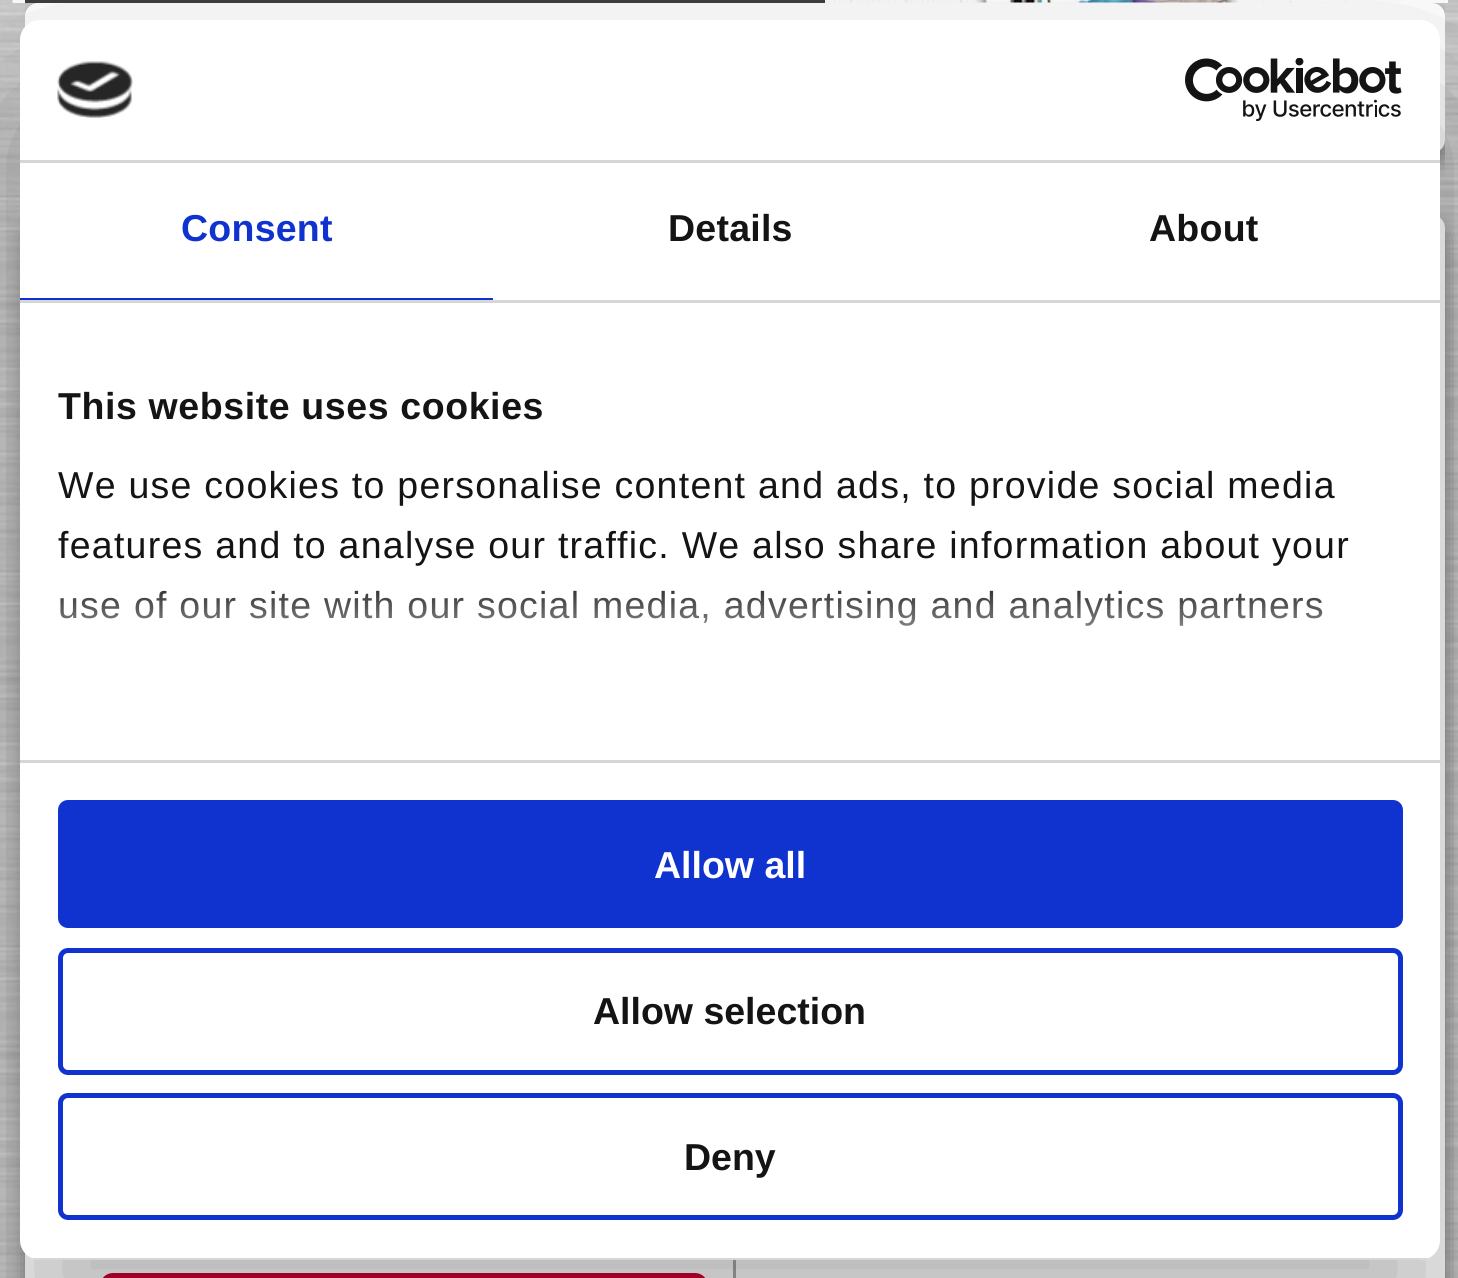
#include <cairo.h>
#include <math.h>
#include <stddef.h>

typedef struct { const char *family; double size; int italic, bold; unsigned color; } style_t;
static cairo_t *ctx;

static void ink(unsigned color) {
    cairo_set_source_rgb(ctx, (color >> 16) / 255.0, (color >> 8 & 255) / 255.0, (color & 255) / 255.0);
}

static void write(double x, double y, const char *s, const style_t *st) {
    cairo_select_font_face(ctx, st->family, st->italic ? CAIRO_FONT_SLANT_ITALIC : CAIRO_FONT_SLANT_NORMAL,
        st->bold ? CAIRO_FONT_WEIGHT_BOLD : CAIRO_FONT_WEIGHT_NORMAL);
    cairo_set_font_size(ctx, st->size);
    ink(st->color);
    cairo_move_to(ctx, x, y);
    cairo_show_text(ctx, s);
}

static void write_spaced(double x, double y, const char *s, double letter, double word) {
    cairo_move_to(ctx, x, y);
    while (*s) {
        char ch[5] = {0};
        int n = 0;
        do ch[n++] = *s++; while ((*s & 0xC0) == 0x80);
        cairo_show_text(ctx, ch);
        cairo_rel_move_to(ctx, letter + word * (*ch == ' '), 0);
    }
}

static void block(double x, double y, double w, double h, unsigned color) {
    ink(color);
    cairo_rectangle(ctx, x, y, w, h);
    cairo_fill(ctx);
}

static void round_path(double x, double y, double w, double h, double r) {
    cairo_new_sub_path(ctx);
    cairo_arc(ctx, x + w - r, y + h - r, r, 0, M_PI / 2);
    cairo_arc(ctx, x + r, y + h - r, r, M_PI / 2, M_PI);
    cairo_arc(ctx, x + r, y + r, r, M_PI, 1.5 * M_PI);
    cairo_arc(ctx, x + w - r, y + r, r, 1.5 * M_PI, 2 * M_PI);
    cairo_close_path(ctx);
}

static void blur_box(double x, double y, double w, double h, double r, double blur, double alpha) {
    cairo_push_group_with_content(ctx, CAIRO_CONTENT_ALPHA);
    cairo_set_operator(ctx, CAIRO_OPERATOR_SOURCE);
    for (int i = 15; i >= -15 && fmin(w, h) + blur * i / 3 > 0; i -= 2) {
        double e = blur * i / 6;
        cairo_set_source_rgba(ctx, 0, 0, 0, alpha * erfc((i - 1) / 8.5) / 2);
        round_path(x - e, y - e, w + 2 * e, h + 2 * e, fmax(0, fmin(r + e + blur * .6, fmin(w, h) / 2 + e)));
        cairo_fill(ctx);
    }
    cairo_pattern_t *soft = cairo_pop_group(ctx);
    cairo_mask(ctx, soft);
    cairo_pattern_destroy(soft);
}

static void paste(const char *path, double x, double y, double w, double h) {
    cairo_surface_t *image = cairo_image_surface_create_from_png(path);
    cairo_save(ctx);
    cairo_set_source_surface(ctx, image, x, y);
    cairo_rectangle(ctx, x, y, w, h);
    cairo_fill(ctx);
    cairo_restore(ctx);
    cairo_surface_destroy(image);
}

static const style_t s1 = {"Liberation Sans", 37.5, 0, 1, 0xffffff};
static const style_t s2 = {"Liberation Sans", 37.5, 0, 1, 0x141414};

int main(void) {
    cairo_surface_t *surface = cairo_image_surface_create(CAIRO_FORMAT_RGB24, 1458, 1278);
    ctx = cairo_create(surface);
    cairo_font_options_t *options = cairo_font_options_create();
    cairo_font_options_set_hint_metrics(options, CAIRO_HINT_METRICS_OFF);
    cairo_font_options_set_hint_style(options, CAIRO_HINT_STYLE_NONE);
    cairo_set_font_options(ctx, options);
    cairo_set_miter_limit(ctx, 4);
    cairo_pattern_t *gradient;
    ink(0xffffff);
    cairo_paint(ctx);
    paste("pic1.png", 0, 0, 1458, 1278);
    block(13, 0, 1435, 3, 0xffffff);
    paste("pic2.png", 12, 0, 1389, 3);
    block(25, 0, 800, 3, 0x3f3f3f);
    cairo_save(ctx);
    cairo_rectangle(ctx, 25, 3, 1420, 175);
    cairo_clip(ctx);
    ink(0x808080);
    blur_box(25, 13, 1420, 150, 13, 10, 1);
    cairo_restore(ctx);
    ink(0xffffff);
    round_path(25, 3, 1420, 150, 13);
    cairo_fill(ctx);
    ink(0x808080);
    blur_box(25, 225, 1420, 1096, 13, 10, 1);
    ink(0xffffff);
    round_path(25, 215, 1420, 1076, 13);
    cairo_fill(ctx);
    block(733, 1260, 3, 18, 0xa9a9a9);
    ink(0xcc0033);
    round_path(100, 1273, 608, 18, 13);
    cairo_fill(ctx);
    ink(0x000000);
    blur_box(20, 100, 1420, 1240, 20, 85, 0.3);
    ink(0xffffff);
    round_path(20, 20, 1420, 1240, 20);
    cairo_fill(ctx);
    block(20, 160, 1420, 3, 0xd6d6d6);
    paste("pic3.png", 57, 61, 76, 57);
    paste("pic4.png", 1185, 58, 217, 63);
    block(20, 300, 1420, 3, 0xd6d6d6);
    block(20, 298, 473, 2, 0x1032cf);
    cairo_select_font_face(ctx, "Liberation Sans", CAIRO_FONT_SLANT_NORMAL, CAIRO_FONT_WEIGHT_BOLD);
    cairo_set_font_size(ctx, 37.5);
    write_spaced(181, 241, "Consent", 0.25, 0);
    ink(0x141414);
    write_spaced(668, 241, "Details", 0.25, 0);
    write_spaced(1149, 241, "About", 0.25, 0);
    block(20, 760, 1420, 3, 0xd6d6d6);
    ink(0x141414);
    write_spaced(58, 419, "This website uses cookies", 0.6, 0);
    cairo_select_font_face(ctx, "Liberation Sans", CAIRO_FONT_SLANT_NORMAL, CAIRO_FONT_WEIGHT_NORMAL);
    write_spaced(58, 498, "We use cookies to personalise content and ads, to provide social media", 1.25, 0);
    write_spaced(58, 558, "features and to analyse our traffic. We also share information about your", 1.25, 0);
    write_spaced(58, 618, "use of our site with our social media, advertising and analytics partners", 1.25, 0);
    gradient = cairo_pattern_create_linear(714, 760, 714, 573);
    cairo_pattern_add_color_stop_rgba(gradient, 0, 1, 1, 1, 1);
    cairo_pattern_add_color_stop_rgba(gradient, 0.5, 1, 1, 1, 0.8);
    cairo_pattern_add_color_stop_rgba(gradient, 1, 1, 1, 1, 0);
    cairo_set_source(ctx, gradient);
    cairo_pattern_destroy(gradient);
    cairo_rectangle(ctx, 59, 590, 1263, 36);
    cairo_fill(ctx);
    cairo_save(ctx);
    round_path(20, 20, 1420, 1240, 20);
    cairo_clip(ctx);
    block(31, 1258, 1398, 2, 0xd6d6d6);
    cairo_restore(ctx);
    ink(0x1032cf);
    round_path(60.5, 802.5, 1340, 123, 7.5);
    cairo_fill_preserve(ctx);
    cairo_set_line_width(ctx, 5);
    cairo_stroke(ctx);
    write(654, 878, "Allow all", &s1);
    round_path(60.5, 950.5, 1340, 122, 7.5);
    ink(0x1032cf);
    cairo_stroke(ctx);
    write(593, 1024, "Allow selection", &s2);
    round_path(60.5, 1095.5, 1340, 122, 7.5);
    ink(0x1032cf);
    cairo_stroke(ctx);
    write(684, 1170, "Deny", &s2);
    cairo_surface_write_to_png(surface, "screenshot.png");
    cairo_font_options_destroy(options);
    cairo_destroy(ctx);
    cairo_surface_destroy(surface);
    return 0;
}
